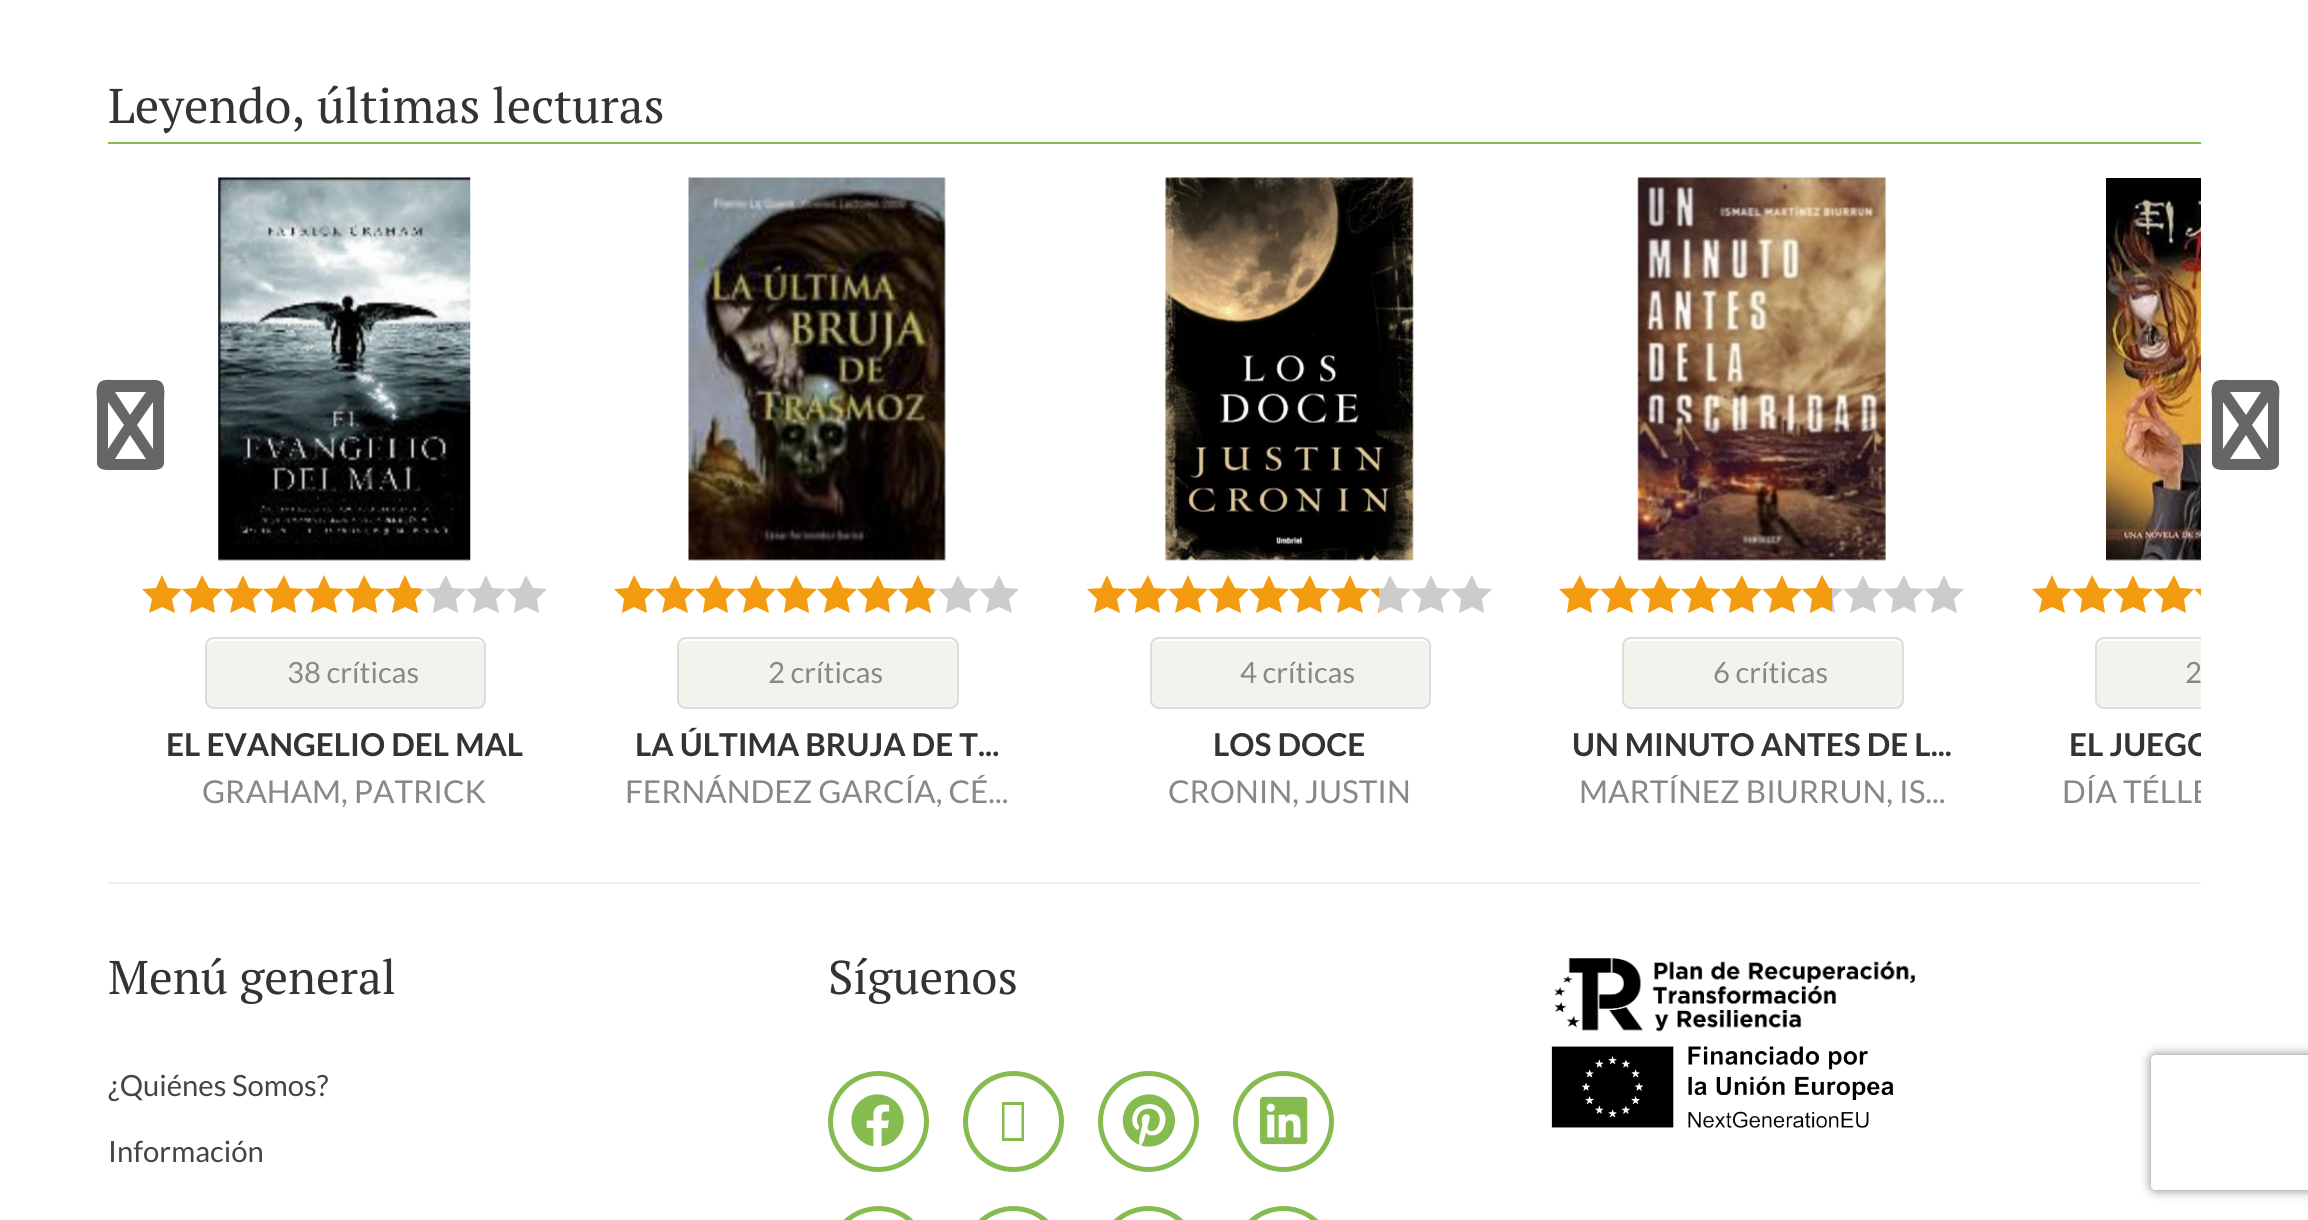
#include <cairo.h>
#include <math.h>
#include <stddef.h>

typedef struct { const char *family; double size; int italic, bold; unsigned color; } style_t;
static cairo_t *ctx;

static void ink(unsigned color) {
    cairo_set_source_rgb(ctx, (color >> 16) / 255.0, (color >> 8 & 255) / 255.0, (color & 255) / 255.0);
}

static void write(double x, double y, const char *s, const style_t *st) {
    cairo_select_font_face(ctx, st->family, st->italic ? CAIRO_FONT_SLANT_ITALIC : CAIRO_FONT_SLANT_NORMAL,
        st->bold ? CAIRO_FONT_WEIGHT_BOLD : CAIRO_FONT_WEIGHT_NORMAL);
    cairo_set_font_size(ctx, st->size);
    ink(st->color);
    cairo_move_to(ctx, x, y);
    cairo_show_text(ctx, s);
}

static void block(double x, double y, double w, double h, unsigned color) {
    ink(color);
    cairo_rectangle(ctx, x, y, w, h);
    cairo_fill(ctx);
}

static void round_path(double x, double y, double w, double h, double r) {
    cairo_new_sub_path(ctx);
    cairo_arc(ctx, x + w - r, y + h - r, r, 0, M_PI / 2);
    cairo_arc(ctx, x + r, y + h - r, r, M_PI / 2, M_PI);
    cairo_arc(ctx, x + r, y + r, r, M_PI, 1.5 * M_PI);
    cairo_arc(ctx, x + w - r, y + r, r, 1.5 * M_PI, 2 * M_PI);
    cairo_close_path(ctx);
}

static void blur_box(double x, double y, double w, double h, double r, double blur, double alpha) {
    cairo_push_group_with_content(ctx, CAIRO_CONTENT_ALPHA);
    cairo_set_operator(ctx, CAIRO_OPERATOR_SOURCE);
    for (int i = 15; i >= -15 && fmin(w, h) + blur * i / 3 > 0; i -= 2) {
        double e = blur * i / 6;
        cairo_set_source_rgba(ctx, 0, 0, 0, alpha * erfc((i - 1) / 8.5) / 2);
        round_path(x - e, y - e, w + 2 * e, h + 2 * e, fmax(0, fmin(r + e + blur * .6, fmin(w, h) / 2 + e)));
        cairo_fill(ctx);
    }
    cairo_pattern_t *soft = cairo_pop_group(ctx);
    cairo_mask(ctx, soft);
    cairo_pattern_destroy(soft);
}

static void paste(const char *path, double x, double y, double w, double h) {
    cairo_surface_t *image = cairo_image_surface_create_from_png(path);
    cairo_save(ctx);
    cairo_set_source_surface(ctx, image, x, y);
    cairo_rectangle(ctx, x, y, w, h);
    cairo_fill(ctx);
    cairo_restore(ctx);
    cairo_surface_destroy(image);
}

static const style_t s1 = {"PT Serif", 48.75, 0, 0, 0x333333};
static const style_t s2 = {"Lato", 29.25, 0, 0, 0x888888};
static const style_t s3 = {"Lato", 31.5, 0, 1, 0x333333};
static const style_t s4 = {"Lato", 31.5, 0, 0, 0x888888};
static const style_t s5 = {"PT Serif", 47.25, 0, 0, 0x333333};
static const style_t s6 = {"Lato", 29.25, 0, 0, 0x444444};

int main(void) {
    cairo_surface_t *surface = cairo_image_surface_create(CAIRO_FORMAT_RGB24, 2308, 1220);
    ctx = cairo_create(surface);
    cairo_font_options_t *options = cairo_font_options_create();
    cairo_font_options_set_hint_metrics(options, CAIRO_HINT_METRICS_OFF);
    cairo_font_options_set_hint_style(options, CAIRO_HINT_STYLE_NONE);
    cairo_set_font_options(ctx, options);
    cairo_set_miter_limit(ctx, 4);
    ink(0xffffff);
    cairo_paint(ctx);
    block(108, 142, 2093, 2, 0x86bb50);
    write(108, 123, "Leyendo, últimas lecturas", &s1);
    ink(0x666666);
    cairo_new_path(ctx);
    cairo_move_to(ctx, 156, 380);
    cairo_line_to(ctx, 114, 380);
    cairo_curve_to(ctx, 109, 380, 104, 379, 100, 382);
    cairo_curve_to(ctx, 95, 386, 97, 396, 97, 401);
    cairo_line_to(ctx, 97, 464);
    cairo_curve_to(ctx, 99, 471, 107, 470, 114, 470);
    cairo_line_to(ctx, 147, 470);
    cairo_curve_to(ctx, 154, 470, 162, 471, 164, 464);
    cairo_line_to(ctx, 164, 401);
    cairo_curve_to(ctx, 164, 394, 167, 381, 156, 380);
    cairo_close_path(ctx);
    cairo_move_to(ctx, 146, 392);
    cairo_line_to(ctx, 130, 415);
    cairo_line_to(ctx, 115, 392);
    cairo_close_path(ctx);
    cairo_move_to(ctx, 108, 402);
    cairo_line_to(ctx, 124, 425);
    cairo_line_to(ctx, 108, 449);
    cairo_close_path(ctx);
    cairo_move_to(ctx, 115, 459);
    cairo_line_to(ctx, 130, 435);
    cairo_line_to(ctx, 146, 459);
    cairo_close_path(ctx);
    cairo_move_to(ctx, 153, 449);
    cairo_line_to(ctx, 137, 425);
    cairo_line_to(ctx, 153, 402);
    cairo_close_path(ctx);
    cairo_fill(ctx);
    cairo_new_path(ctx);
    cairo_move_to(ctx, 2271, 380);
    cairo_line_to(ctx, 2229, 380);
    cairo_curve_to(ctx, 2224, 380, 2219, 379, 2215, 382);
    cairo_curve_to(ctx, 2210, 386, 2212, 396, 2212, 401);
    cairo_line_to(ctx, 2212, 464);
    cairo_curve_to(ctx, 2214, 471, 2222, 470, 2229, 470);
    cairo_line_to(ctx, 2262, 470);
    cairo_curve_to(ctx, 2269, 470, 2277, 471, 2279, 464);
    cairo_line_to(ctx, 2279, 401);
    cairo_curve_to(ctx, 2279, 394, 2282, 381, 2271, 380);
    cairo_close_path(ctx);
    cairo_move_to(ctx, 2261, 392);
    cairo_line_to(ctx, 2246, 415);
    cairo_line_to(ctx, 2230, 392);
    cairo_close_path(ctx);
    cairo_move_to(ctx, 2223, 402);
    cairo_line_to(ctx, 2239, 425);
    cairo_line_to(ctx, 2223, 449);
    cairo_close_path(ctx);
    cairo_move_to(ctx, 2230, 459);
    cairo_line_to(ctx, 2246, 435);
    cairo_line_to(ctx, 2261, 459);
    cairo_close_path(ctx);
    cairo_move_to(ctx, 2268, 449);
    cairo_line_to(ctx, 2252, 425);
    cairo_line_to(ctx, 2268, 402);
    cairo_close_path(ctx);
    cairo_fill(ctx);
    paste("pic1.png", 218, 177, 253, 384);
    ink(0xf39c12);
    cairo_new_path(ctx);
    cairo_move_to(ctx, 162, 575);
    cairo_line_to(ctx, 168, 588);
    cairo_line_to(ctx, 182, 589);
    cairo_line_to(ctx, 172, 599);
    cairo_line_to(ctx, 175, 613);
    cairo_line_to(ctx, 162, 607);
    cairo_line_to(ctx, 149, 613);
    cairo_line_to(ctx, 152, 599);
    cairo_line_to(ctx, 142, 589);
    cairo_line_to(ctx, 156, 588);
    cairo_close_path(ctx);
    cairo_fill(ctx);
    cairo_new_path(ctx);
    cairo_move_to(ctx, 202, 575);
    cairo_line_to(ctx, 209, 588);
    cairo_line_to(ctx, 223, 589);
    cairo_line_to(ctx, 213, 599);
    cairo_line_to(ctx, 215, 613);
    cairo_line_to(ctx, 202, 607);
    cairo_line_to(ctx, 190, 613);
    cairo_line_to(ctx, 192, 599);
    cairo_line_to(ctx, 182, 589);
    cairo_line_to(ctx, 196, 588);
    cairo_close_path(ctx);
    cairo_fill(ctx);
    cairo_new_path(ctx);
    cairo_move_to(ctx, 243, 575);
    cairo_line_to(ctx, 249, 588);
    cairo_line_to(ctx, 263, 589);
    cairo_line_to(ctx, 253, 599);
    cairo_line_to(ctx, 256, 613);
    cairo_line_to(ctx, 243, 607);
    cairo_line_to(ctx, 230, 613);
    cairo_line_to(ctx, 233, 599);
    cairo_line_to(ctx, 223, 589);
    cairo_line_to(ctx, 237, 588);
    cairo_close_path(ctx);
    cairo_fill(ctx);
    cairo_new_path(ctx);
    cairo_move_to(ctx, 284, 575);
    cairo_line_to(ctx, 290, 588);
    cairo_line_to(ctx, 304, 589);
    cairo_line_to(ctx, 294, 599);
    cairo_line_to(ctx, 296, 613);
    cairo_line_to(ctx, 284, 607);
    cairo_line_to(ctx, 271, 613);
    cairo_line_to(ctx, 273, 599);
    cairo_line_to(ctx, 263, 589);
    cairo_line_to(ctx, 277, 588);
    cairo_close_path(ctx);
    cairo_fill(ctx);
    cairo_new_path(ctx);
    cairo_move_to(ctx, 324, 575);
    cairo_line_to(ctx, 330, 588);
    cairo_line_to(ctx, 344, 589);
    cairo_line_to(ctx, 334, 599);
    cairo_line_to(ctx, 337, 613);
    cairo_line_to(ctx, 324, 607);
    cairo_line_to(ctx, 311, 613);
    cairo_line_to(ctx, 314, 599);
    cairo_line_to(ctx, 304, 589);
    cairo_line_to(ctx, 318, 588);
    cairo_close_path(ctx);
    cairo_fill(ctx);
    cairo_new_path(ctx);
    cairo_move_to(ctx, 364, 575);
    cairo_line_to(ctx, 371, 588);
    cairo_line_to(ctx, 385, 589);
    cairo_line_to(ctx, 375, 599);
    cairo_line_to(ctx, 377, 613);
    cairo_line_to(ctx, 364, 607);
    cairo_line_to(ctx, 352, 613);
    cairo_line_to(ctx, 354, 599);
    cairo_line_to(ctx, 344, 589);
    cairo_line_to(ctx, 358, 588);
    cairo_close_path(ctx);
    cairo_fill(ctx);
    ink(0xcccccc);
    cairo_new_path(ctx);
    cairo_move_to(ctx, 405, 575);
    cairo_line_to(ctx, 411, 588);
    cairo_line_to(ctx, 425, 589);
    cairo_line_to(ctx, 415, 599);
    cairo_line_to(ctx, 418, 613);
    cairo_line_to(ctx, 405, 607);
    cairo_line_to(ctx, 392, 613);
    cairo_line_to(ctx, 395, 599);
    cairo_line_to(ctx, 385, 589);
    cairo_line_to(ctx, 399, 588);
    cairo_close_path(ctx);
    cairo_fill(ctx);
    cairo_save(ctx);
    cairo_rectangle(ctx, 385, 574, 36, 40);
    cairo_clip(ctx);
    ink(0xf39c12);
    cairo_new_path(ctx);
    cairo_move_to(ctx, 405, 575);
    cairo_line_to(ctx, 411, 588);
    cairo_line_to(ctx, 425, 589);
    cairo_line_to(ctx, 415, 599);
    cairo_line_to(ctx, 418, 613);
    cairo_line_to(ctx, 405, 607);
    cairo_line_to(ctx, 392, 613);
    cairo_line_to(ctx, 395, 599);
    cairo_line_to(ctx, 385, 589);
    cairo_line_to(ctx, 399, 588);
    cairo_close_path(ctx);
    cairo_fill(ctx);
    cairo_restore(ctx);
    cairo_new_path(ctx);
    cairo_move_to(ctx, 446, 575);
    cairo_line_to(ctx, 452, 588);
    cairo_line_to(ctx, 466, 589);
    cairo_line_to(ctx, 456, 599);
    cairo_line_to(ctx, 458, 613);
    cairo_line_to(ctx, 446, 607);
    cairo_line_to(ctx, 433, 613);
    cairo_line_to(ctx, 435, 599);
    cairo_line_to(ctx, 425, 589);
    cairo_line_to(ctx, 439, 588);
    cairo_close_path(ctx);
    cairo_fill(ctx);
    cairo_new_path(ctx);
    cairo_move_to(ctx, 486, 575);
    cairo_line_to(ctx, 492, 588);
    cairo_line_to(ctx, 506, 589);
    cairo_line_to(ctx, 496, 599);
    cairo_line_to(ctx, 499, 613);
    cairo_line_to(ctx, 486, 607);
    cairo_line_to(ctx, 473, 613);
    cairo_line_to(ctx, 476, 599);
    cairo_line_to(ctx, 466, 589);
    cairo_line_to(ctx, 480, 588);
    cairo_close_path(ctx);
    cairo_fill(ctx);
    cairo_new_path(ctx);
    cairo_move_to(ctx, 526, 575);
    cairo_line_to(ctx, 533, 588);
    cairo_line_to(ctx, 547, 589);
    cairo_line_to(ctx, 537, 599);
    cairo_line_to(ctx, 539, 613);
    cairo_line_to(ctx, 526, 607);
    cairo_line_to(ctx, 514, 613);
    cairo_line_to(ctx, 516, 599);
    cairo_line_to(ctx, 506, 589);
    cairo_line_to(ctx, 520, 588);
    cairo_close_path(ctx);
    cairo_fill(ctx);
    ink(0xf3f2ed);
    round_path(205, 637, 281, 72, 9);
    cairo_fill(ctx);
    ink(0xffffff);
    cairo_new_path(ctx);
    cairo_move_to(ctx, 214, 641);
    cairo_line_to(ctx, 477, 641);
    cairo_curve_to(ctx, 481, 641, 484, 644, 484, 648);
    cairo_curve_to(ctx, 484, 644, 483, 640, 478, 639);
    cairo_line_to(ctx, 214, 639);
    cairo_curve_to(ctx, 209, 639, 207, 644, 207, 648);
    cairo_curve_to(ctx, 207, 644, 210, 641, 214, 641);
    cairo_close_path(ctx);
    cairo_fill(ctx);
    round_path(206, 638, 279, 70, 8);
    ink(0xdddddd);
    cairo_stroke(ctx);
    write(287, 683, "38 críticas", &s2);
    write(166, 756, "EL EVANGELIO DEL MAL", &s3);
    write(202, 803, "GRAHAM, PATRICK", &s4);
    paste("pic2.png", 688, 177, 258, 384);
    ink(0xf39c12);
    cairo_new_path(ctx);
    cairo_move_to(ctx, 634, 575);
    cairo_line_to(ctx, 641, 588);
    cairo_line_to(ctx, 655, 589);
    cairo_line_to(ctx, 645, 599);
    cairo_line_to(ctx, 647, 613);
    cairo_line_to(ctx, 634, 607);
    cairo_line_to(ctx, 622, 613);
    cairo_line_to(ctx, 624, 599);
    cairo_line_to(ctx, 614, 589);
    cairo_line_to(ctx, 628, 588);
    cairo_close_path(ctx);
    cairo_fill(ctx);
    cairo_new_path(ctx);
    cairo_move_to(ctx, 675, 575);
    cairo_line_to(ctx, 681, 588);
    cairo_line_to(ctx, 695, 589);
    cairo_line_to(ctx, 685, 599);
    cairo_line_to(ctx, 688, 613);
    cairo_line_to(ctx, 675, 607);
    cairo_line_to(ctx, 662, 613);
    cairo_line_to(ctx, 665, 599);
    cairo_line_to(ctx, 655, 589);
    cairo_line_to(ctx, 669, 588);
    cairo_close_path(ctx);
    cairo_fill(ctx);
    cairo_new_path(ctx);
    cairo_move_to(ctx, 716, 575);
    cairo_line_to(ctx, 722, 588);
    cairo_line_to(ctx, 736, 589);
    cairo_line_to(ctx, 726, 599);
    cairo_line_to(ctx, 728, 613);
    cairo_line_to(ctx, 716, 607);
    cairo_line_to(ctx, 703, 613);
    cairo_line_to(ctx, 705, 599);
    cairo_line_to(ctx, 695, 589);
    cairo_line_to(ctx, 709, 588);
    cairo_close_path(ctx);
    cairo_fill(ctx);
    cairo_new_path(ctx);
    cairo_move_to(ctx, 756, 575);
    cairo_line_to(ctx, 762, 588);
    cairo_line_to(ctx, 776, 589);
    cairo_line_to(ctx, 766, 599);
    cairo_line_to(ctx, 769, 613);
    cairo_line_to(ctx, 756, 607);
    cairo_line_to(ctx, 743, 613);
    cairo_line_to(ctx, 746, 599);
    cairo_line_to(ctx, 736, 589);
    cairo_line_to(ctx, 750, 588);
    cairo_close_path(ctx);
    cairo_fill(ctx);
    cairo_new_path(ctx);
    cairo_move_to(ctx, 796, 575);
    cairo_line_to(ctx, 803, 588);
    cairo_line_to(ctx, 817, 589);
    cairo_line_to(ctx, 807, 599);
    cairo_line_to(ctx, 809, 613);
    cairo_line_to(ctx, 796, 607);
    cairo_line_to(ctx, 784, 613);
    cairo_line_to(ctx, 786, 599);
    cairo_line_to(ctx, 776, 589);
    cairo_line_to(ctx, 790, 588);
    cairo_close_path(ctx);
    cairo_fill(ctx);
    cairo_new_path(ctx);
    cairo_move_to(ctx, 837, 575);
    cairo_line_to(ctx, 843, 588);
    cairo_line_to(ctx, 857, 589);
    cairo_line_to(ctx, 847, 599);
    cairo_line_to(ctx, 850, 613);
    cairo_line_to(ctx, 837, 607);
    cairo_line_to(ctx, 824, 613);
    cairo_line_to(ctx, 827, 599);
    cairo_line_to(ctx, 817, 589);
    cairo_line_to(ctx, 831, 588);
    cairo_close_path(ctx);
    cairo_fill(ctx);
    cairo_new_path(ctx);
    cairo_move_to(ctx, 878, 575);
    cairo_line_to(ctx, 884, 588);
    cairo_line_to(ctx, 898, 589);
    cairo_line_to(ctx, 888, 599);
    cairo_line_to(ctx, 890, 613);
    cairo_line_to(ctx, 878, 607);
    cairo_line_to(ctx, 865, 613);
    cairo_line_to(ctx, 867, 599);
    cairo_line_to(ctx, 857, 589);
    cairo_line_to(ctx, 871, 588);
    cairo_close_path(ctx);
    cairo_fill(ctx);
    ink(0xcccccc);
    cairo_new_path(ctx);
    cairo_move_to(ctx, 918, 575);
    cairo_line_to(ctx, 924, 588);
    cairo_line_to(ctx, 938, 589);
    cairo_line_to(ctx, 928, 599);
    cairo_line_to(ctx, 931, 613);
    cairo_line_to(ctx, 918, 607);
    cairo_line_to(ctx, 905, 613);
    cairo_line_to(ctx, 908, 599);
    cairo_line_to(ctx, 898, 589);
    cairo_line_to(ctx, 912, 588);
    cairo_close_path(ctx);
    cairo_fill(ctx);
    cairo_save(ctx);
    cairo_rectangle(ctx, 898, 574, 36, 40);
    cairo_clip(ctx);
    ink(0xf39c12);
    cairo_new_path(ctx);
    cairo_move_to(ctx, 918, 575);
    cairo_line_to(ctx, 924, 588);
    cairo_line_to(ctx, 938, 589);
    cairo_line_to(ctx, 928, 599);
    cairo_line_to(ctx, 931, 613);
    cairo_line_to(ctx, 918, 607);
    cairo_line_to(ctx, 905, 613);
    cairo_line_to(ctx, 908, 599);
    cairo_line_to(ctx, 898, 589);
    cairo_line_to(ctx, 912, 588);
    cairo_close_path(ctx);
    cairo_fill(ctx);
    cairo_restore(ctx);
    cairo_new_path(ctx);
    cairo_move_to(ctx, 958, 575);
    cairo_line_to(ctx, 965, 588);
    cairo_line_to(ctx, 979, 589);
    cairo_line_to(ctx, 969, 599);
    cairo_line_to(ctx, 971, 613);
    cairo_line_to(ctx, 958, 607);
    cairo_line_to(ctx, 946, 613);
    cairo_line_to(ctx, 948, 599);
    cairo_line_to(ctx, 938, 589);
    cairo_line_to(ctx, 952, 588);
    cairo_close_path(ctx);
    cairo_fill(ctx);
    cairo_new_path(ctx);
    cairo_move_to(ctx, 999, 575);
    cairo_line_to(ctx, 1005, 588);
    cairo_line_to(ctx, 1019, 589);
    cairo_line_to(ctx, 1009, 599);
    cairo_line_to(ctx, 1012, 613);
    cairo_line_to(ctx, 999, 607);
    cairo_line_to(ctx, 986, 613);
    cairo_line_to(ctx, 989, 599);
    cairo_line_to(ctx, 979, 589);
    cairo_line_to(ctx, 993, 588);
    cairo_close_path(ctx);
    cairo_fill(ctx);
    ink(0xf3f2ed);
    round_path(677, 637, 282, 72, 9);
    cairo_fill(ctx);
    ink(0xffffff);
    cairo_new_path(ctx);
    cairo_move_to(ctx, 686, 641);
    cairo_line_to(ctx, 950, 641);
    cairo_curve_to(ctx, 953, 641, 956, 644, 956, 648);
    cairo_curve_to(ctx, 956, 644, 955, 640, 950, 639);
    cairo_line_to(ctx, 687, 639);
    cairo_curve_to(ctx, 682, 639, 680, 644, 680, 648);
    cairo_curve_to(ctx, 680, 644, 683, 641, 686, 641);
    cairo_close_path(ctx);
    cairo_fill(ctx);
    round_path(678, 638, 280, 70, 8);
    ink(0xdddddd);
    cairo_stroke(ctx);
    write(768, 683, "2 críticas", &s2);
    write(635, 756, "LA ÚLTIMA BRUJA DE T...", &s3);
    write(625, 803, "FERNÁNDEZ GARCÍA, CÉ...", &s4);
    paste("pic3.png", 1165, 177, 249, 384);
    ink(0xf39c12);
    cairo_new_path(ctx);
    cairo_move_to(ctx, 1107, 575);
    cairo_line_to(ctx, 1113, 588);
    cairo_line_to(ctx, 1127, 589);
    cairo_line_to(ctx, 1117, 599);
    cairo_line_to(ctx, 1120, 613);
    cairo_line_to(ctx, 1107, 607);
    cairo_line_to(ctx, 1094, 613);
    cairo_line_to(ctx, 1097, 599);
    cairo_line_to(ctx, 1087, 589);
    cairo_line_to(ctx, 1101, 588);
    cairo_close_path(ctx);
    cairo_fill(ctx);
    cairo_new_path(ctx);
    cairo_move_to(ctx, 1148, 575);
    cairo_line_to(ctx, 1154, 588);
    cairo_line_to(ctx, 1168, 589);
    cairo_line_to(ctx, 1158, 599);
    cairo_line_to(ctx, 1160, 613);
    cairo_line_to(ctx, 1148, 607);
    cairo_line_to(ctx, 1135, 613);
    cairo_line_to(ctx, 1137, 599);
    cairo_line_to(ctx, 1127, 589);
    cairo_line_to(ctx, 1141, 588);
    cairo_close_path(ctx);
    cairo_fill(ctx);
    cairo_new_path(ctx);
    cairo_move_to(ctx, 1188, 575);
    cairo_line_to(ctx, 1194, 588);
    cairo_line_to(ctx, 1208, 589);
    cairo_line_to(ctx, 1198, 599);
    cairo_line_to(ctx, 1201, 613);
    cairo_line_to(ctx, 1188, 607);
    cairo_line_to(ctx, 1175, 613);
    cairo_line_to(ctx, 1178, 599);
    cairo_line_to(ctx, 1168, 589);
    cairo_line_to(ctx, 1182, 588);
    cairo_close_path(ctx);
    cairo_fill(ctx);
    cairo_new_path(ctx);
    cairo_move_to(ctx, 1228, 575);
    cairo_line_to(ctx, 1235, 588);
    cairo_line_to(ctx, 1249, 589);
    cairo_line_to(ctx, 1239, 599);
    cairo_line_to(ctx, 1241, 613);
    cairo_line_to(ctx, 1228, 607);
    cairo_line_to(ctx, 1216, 613);
    cairo_line_to(ctx, 1218, 599);
    cairo_line_to(ctx, 1208, 589);
    cairo_line_to(ctx, 1222, 588);
    cairo_close_path(ctx);
    cairo_fill(ctx);
    cairo_new_path(ctx);
    cairo_move_to(ctx, 1269, 575);
    cairo_line_to(ctx, 1275, 588);
    cairo_line_to(ctx, 1289, 589);
    cairo_line_to(ctx, 1279, 599);
    cairo_line_to(ctx, 1282, 613);
    cairo_line_to(ctx, 1269, 607);
    cairo_line_to(ctx, 1256, 613);
    cairo_line_to(ctx, 1259, 599);
    cairo_line_to(ctx, 1249, 589);
    cairo_line_to(ctx, 1263, 588);
    cairo_close_path(ctx);
    cairo_fill(ctx);
    cairo_new_path(ctx);
    cairo_move_to(ctx, 1310, 575);
    cairo_line_to(ctx, 1316, 588);
    cairo_line_to(ctx, 1330, 589);
    cairo_line_to(ctx, 1320, 599);
    cairo_line_to(ctx, 1322, 613);
    cairo_line_to(ctx, 1310, 607);
    cairo_line_to(ctx, 1297, 613);
    cairo_line_to(ctx, 1299, 599);
    cairo_line_to(ctx, 1289, 589);
    cairo_line_to(ctx, 1303, 588);
    cairo_close_path(ctx);
    cairo_fill(ctx);
    cairo_new_path(ctx);
    cairo_move_to(ctx, 1350, 575);
    cairo_line_to(ctx, 1356, 588);
    cairo_line_to(ctx, 1370, 589);
    cairo_line_to(ctx, 1360, 599);
    cairo_line_to(ctx, 1363, 613);
    cairo_line_to(ctx, 1350, 607);
    cairo_line_to(ctx, 1337, 613);
    cairo_line_to(ctx, 1340, 599);
    cairo_line_to(ctx, 1330, 589);
    cairo_line_to(ctx, 1344, 588);
    cairo_close_path(ctx);
    cairo_fill(ctx);
    ink(0xcccccc);
    cairo_new_path(ctx);
    cairo_move_to(ctx, 1390, 575);
    cairo_line_to(ctx, 1397, 588);
    cairo_line_to(ctx, 1411, 589);
    cairo_line_to(ctx, 1401, 599);
    cairo_line_to(ctx, 1403, 613);
    cairo_line_to(ctx, 1390, 607);
    cairo_line_to(ctx, 1378, 613);
    cairo_line_to(ctx, 1380, 599);
    cairo_line_to(ctx, 1370, 589);
    cairo_line_to(ctx, 1384, 588);
    cairo_close_path(ctx);
    cairo_fill(ctx);
    cairo_save(ctx);
    cairo_rectangle(ctx, 1370, 574, 9, 40);
    cairo_clip(ctx);
    ink(0xf39c12);
    cairo_new_path(ctx);
    cairo_move_to(ctx, 1390, 575);
    cairo_line_to(ctx, 1397, 588);
    cairo_line_to(ctx, 1411, 589);
    cairo_line_to(ctx, 1401, 599);
    cairo_line_to(ctx, 1403, 613);
    cairo_line_to(ctx, 1390, 607);
    cairo_line_to(ctx, 1378, 613);
    cairo_line_to(ctx, 1380, 599);
    cairo_line_to(ctx, 1370, 589);
    cairo_line_to(ctx, 1384, 588);
    cairo_close_path(ctx);
    cairo_fill(ctx);
    cairo_restore(ctx);
    cairo_new_path(ctx);
    cairo_move_to(ctx, 1431, 575);
    cairo_line_to(ctx, 1437, 588);
    cairo_line_to(ctx, 1451, 589);
    cairo_line_to(ctx, 1441, 599);
    cairo_line_to(ctx, 1444, 613);
    cairo_line_to(ctx, 1431, 607);
    cairo_line_to(ctx, 1418, 613);
    cairo_line_to(ctx, 1421, 599);
    cairo_line_to(ctx, 1411, 589);
    cairo_line_to(ctx, 1425, 588);
    cairo_close_path(ctx);
    cairo_fill(ctx);
    cairo_new_path(ctx);
    cairo_move_to(ctx, 1472, 575);
    cairo_line_to(ctx, 1478, 588);
    cairo_line_to(ctx, 1492, 589);
    cairo_line_to(ctx, 1482, 599);
    cairo_line_to(ctx, 1484, 613);
    cairo_line_to(ctx, 1472, 607);
    cairo_line_to(ctx, 1459, 613);
    cairo_line_to(ctx, 1461, 599);
    cairo_line_to(ctx, 1451, 589);
    cairo_line_to(ctx, 1465, 588);
    cairo_close_path(ctx);
    cairo_fill(ctx);
    ink(0xf3f2ed);
    round_path(1150, 637, 281, 72, 9);
    cairo_fill(ctx);
    ink(0xffffff);
    cairo_new_path(ctx);
    cairo_move_to(ctx, 1159, 641);
    cairo_line_to(ctx, 1422, 641);
    cairo_curve_to(ctx, 1426, 641, 1429, 644, 1429, 648);
    cairo_curve_to(ctx, 1429, 644, 1428, 640, 1423, 639);
    cairo_line_to(ctx, 1159, 639);
    cairo_curve_to(ctx, 1154, 639, 1152, 644, 1152, 648);
    cairo_curve_to(ctx, 1152, 644, 1155, 641, 1159, 641);
    cairo_close_path(ctx);
    cairo_fill(ctx);
    round_path(1151, 638, 279, 70, 8);
    ink(0xdddddd);
    cairo_stroke(ctx);
    write(1240, 683, "4 críticas", &s2);
    write(1213, 756, "LOS DOCE", &s3);
    write(1168, 803, "CRONIN, JUSTIN", &s4);
    paste("pic4.png", 1637, 177, 249, 384);
    ink(0xf39c12);
    cairo_new_path(ctx);
    cairo_move_to(ctx, 1580, 575);
    cairo_line_to(ctx, 1586, 588);
    cairo_line_to(ctx, 1600, 589);
    cairo_line_to(ctx, 1590, 599);
    cairo_line_to(ctx, 1592, 613);
    cairo_line_to(ctx, 1580, 607);
    cairo_line_to(ctx, 1567, 613);
    cairo_line_to(ctx, 1569, 599);
    cairo_line_to(ctx, 1559, 589);
    cairo_line_to(ctx, 1573, 588);
    cairo_close_path(ctx);
    cairo_fill(ctx);
    cairo_new_path(ctx);
    cairo_move_to(ctx, 1620, 575);
    cairo_line_to(ctx, 1626, 588);
    cairo_line_to(ctx, 1640, 589);
    cairo_line_to(ctx, 1630, 599);
    cairo_line_to(ctx, 1633, 613);
    cairo_line_to(ctx, 1620, 607);
    cairo_line_to(ctx, 1607, 613);
    cairo_line_to(ctx, 1610, 599);
    cairo_line_to(ctx, 1600, 589);
    cairo_line_to(ctx, 1614, 588);
    cairo_close_path(ctx);
    cairo_fill(ctx);
    cairo_new_path(ctx);
    cairo_move_to(ctx, 1660, 575);
    cairo_line_to(ctx, 1667, 588);
    cairo_line_to(ctx, 1681, 589);
    cairo_line_to(ctx, 1671, 599);
    cairo_line_to(ctx, 1673, 613);
    cairo_line_to(ctx, 1660, 607);
    cairo_line_to(ctx, 1648, 613);
    cairo_line_to(ctx, 1650, 599);
    cairo_line_to(ctx, 1640, 589);
    cairo_line_to(ctx, 1654, 588);
    cairo_close_path(ctx);
    cairo_fill(ctx);
    cairo_new_path(ctx);
    cairo_move_to(ctx, 1701, 575);
    cairo_line_to(ctx, 1707, 588);
    cairo_line_to(ctx, 1721, 589);
    cairo_line_to(ctx, 1711, 599);
    cairo_line_to(ctx, 1714, 613);
    cairo_line_to(ctx, 1701, 607);
    cairo_line_to(ctx, 1688, 613);
    cairo_line_to(ctx, 1691, 599);
    cairo_line_to(ctx, 1681, 589);
    cairo_line_to(ctx, 1695, 588);
    cairo_close_path(ctx);
    cairo_fill(ctx);
    cairo_new_path(ctx);
    cairo_move_to(ctx, 1742, 575);
    cairo_line_to(ctx, 1748, 588);
    cairo_line_to(ctx, 1762, 589);
    cairo_line_to(ctx, 1752, 599);
    cairo_line_to(ctx, 1754, 613);
    cairo_line_to(ctx, 1742, 607);
    cairo_line_to(ctx, 1729, 613);
    cairo_line_to(ctx, 1731, 599);
    cairo_line_to(ctx, 1721, 589);
    cairo_line_to(ctx, 1735, 588);
    cairo_close_path(ctx);
    cairo_fill(ctx);
    cairo_new_path(ctx);
    cairo_move_to(ctx, 1782, 575);
    cairo_line_to(ctx, 1788, 588);
    cairo_line_to(ctx, 1802, 589);
    cairo_line_to(ctx, 1792, 599);
    cairo_line_to(ctx, 1795, 613);
    cairo_line_to(ctx, 1782, 607);
    cairo_line_to(ctx, 1769, 613);
    cairo_line_to(ctx, 1772, 599);
    cairo_line_to(ctx, 1762, 589);
    cairo_line_to(ctx, 1776, 588);
    cairo_close_path(ctx);
    cairo_fill(ctx);
    ink(0xcccccc);
    cairo_new_path(ctx);
    cairo_move_to(ctx, 1822, 575);
    cairo_line_to(ctx, 1829, 588);
    cairo_line_to(ctx, 1843, 589);
    cairo_line_to(ctx, 1833, 599);
    cairo_line_to(ctx, 1835, 613);
    cairo_line_to(ctx, 1822, 607);
    cairo_line_to(ctx, 1810, 613);
    cairo_line_to(ctx, 1812, 599);
    cairo_line_to(ctx, 1802, 589);
    cairo_line_to(ctx, 1816, 588);
    cairo_close_path(ctx);
    cairo_fill(ctx);
    cairo_save(ctx);
    cairo_rectangle(ctx, 1802, 574, 30, 40);
    cairo_clip(ctx);
    ink(0xf39c12);
    cairo_new_path(ctx);
    cairo_move_to(ctx, 1822, 575);
    cairo_line_to(ctx, 1829, 588);
    cairo_line_to(ctx, 1843, 589);
    cairo_line_to(ctx, 1833, 599);
    cairo_line_to(ctx, 1835, 613);
    cairo_line_to(ctx, 1822, 607);
    cairo_line_to(ctx, 1810, 613);
    cairo_line_to(ctx, 1812, 599);
    cairo_line_to(ctx, 1802, 589);
    cairo_line_to(ctx, 1816, 588);
    cairo_close_path(ctx);
    cairo_fill(ctx);
    cairo_restore(ctx);
    cairo_new_path(ctx);
    cairo_move_to(ctx, 1863, 575);
    cairo_line_to(ctx, 1869, 588);
    cairo_line_to(ctx, 1883, 589);
    cairo_line_to(ctx, 1873, 599);
    cairo_line_to(ctx, 1876, 613);
    cairo_line_to(ctx, 1863, 607);
    cairo_line_to(ctx, 1850, 613);
    cairo_line_to(ctx, 1853, 599);
    cairo_line_to(ctx, 1843, 589);
    cairo_line_to(ctx, 1857, 588);
    cairo_close_path(ctx);
    cairo_fill(ctx);
    cairo_new_path(ctx);
    cairo_move_to(ctx, 1904, 575);
    cairo_line_to(ctx, 1910, 588);
    cairo_line_to(ctx, 1924, 589);
    cairo_line_to(ctx, 1914, 599);
    cairo_line_to(ctx, 1916, 613);
    cairo_line_to(ctx, 1904, 607);
    cairo_line_to(ctx, 1891, 613);
    cairo_line_to(ctx, 1893, 599);
    cairo_line_to(ctx, 1883, 589);
    cairo_line_to(ctx, 1897, 588);
    cairo_close_path(ctx);
    cairo_fill(ctx);
    cairo_new_path(ctx);
    cairo_move_to(ctx, 1944, 575);
    cairo_line_to(ctx, 1950, 588);
    cairo_line_to(ctx, 1964, 589);
    cairo_line_to(ctx, 1954, 599);
    cairo_line_to(ctx, 1957, 613);
    cairo_line_to(ctx, 1944, 607);
    cairo_line_to(ctx, 1931, 613);
    cairo_line_to(ctx, 1934, 599);
    cairo_line_to(ctx, 1924, 589);
    cairo_line_to(ctx, 1938, 588);
    cairo_close_path(ctx);
    cairo_fill(ctx);
    ink(0xf3f2ed);
    round_path(1622, 637, 282, 72, 9);
    cairo_fill(ctx);
    ink(0xffffff);
    cairo_new_path(ctx);
    cairo_move_to(ctx, 1631, 641);
    cairo_line_to(ctx, 1894, 641);
    cairo_curve_to(ctx, 1898, 641, 1901, 644, 1901, 648);
    cairo_line_to(ctx, 1901, 646);
    cairo_curve_to(ctx, 1901, 642, 1898, 639, 1894, 639);
    cairo_line_to(ctx, 1632, 639);
    cairo_curve_to(ctx, 1629, 639, 1626, 641, 1625, 644);
    cairo_curve_to(ctx, 1627, 642, 1629, 641, 1631, 641);
    cairo_close_path(ctx);
    cairo_fill(ctx);
    round_path(1623, 638, 280, 70, 8);
    ink(0xdddddd);
    cairo_stroke(ctx);
    write(1713, 683, "6 críticas", &s2);
    write(1572, 756, "UN MINUTO ANTES DE L...", &s3);
    write(1579, 803, "MARTÍNEZ BIURRUN, IS...", &s4);
    paste("pic5.png", 2106, 178, 95, 383);
    ink(0xf39c12);
    cairo_new_path(ctx);
    cairo_move_to(ctx, 2052, 575);
    cairo_line_to(ctx, 2058, 588);
    cairo_line_to(ctx, 2072, 589);
    cairo_line_to(ctx, 2062, 599);
    cairo_line_to(ctx, 2065, 613);
    cairo_line_to(ctx, 2052, 607);
    cairo_line_to(ctx, 2039, 613);
    cairo_line_to(ctx, 2042, 599);
    cairo_line_to(ctx, 2032, 589);
    cairo_line_to(ctx, 2046, 588);
    cairo_close_path(ctx);
    cairo_fill(ctx);
    cairo_new_path(ctx);
    cairo_move_to(ctx, 2092, 575);
    cairo_line_to(ctx, 2099, 588);
    cairo_line_to(ctx, 2113, 589);
    cairo_line_to(ctx, 2103, 599);
    cairo_line_to(ctx, 2105, 613);
    cairo_line_to(ctx, 2092, 607);
    cairo_line_to(ctx, 2080, 613);
    cairo_line_to(ctx, 2082, 599);
    cairo_line_to(ctx, 2072, 589);
    cairo_line_to(ctx, 2086, 588);
    cairo_close_path(ctx);
    cairo_fill(ctx);
    cairo_new_path(ctx);
    cairo_move_to(ctx, 2133, 575);
    cairo_line_to(ctx, 2139, 588);
    cairo_line_to(ctx, 2153, 589);
    cairo_line_to(ctx, 2143, 599);
    cairo_line_to(ctx, 2146, 613);
    cairo_line_to(ctx, 2133, 607);
    cairo_line_to(ctx, 2120, 613);
    cairo_line_to(ctx, 2123, 599);
    cairo_line_to(ctx, 2113, 589);
    cairo_line_to(ctx, 2127, 588);
    cairo_close_path(ctx);
    cairo_fill(ctx);
    cairo_new_path(ctx);
    cairo_move_to(ctx, 2174, 575);
    cairo_line_to(ctx, 2180, 588);
    cairo_line_to(ctx, 2194, 589);
    cairo_line_to(ctx, 2184, 599);
    cairo_line_to(ctx, 2186, 613);
    cairo_line_to(ctx, 2174, 607);
    cairo_line_to(ctx, 2161, 613);
    cairo_line_to(ctx, 2163, 599);
    cairo_line_to(ctx, 2153, 589);
    cairo_line_to(ctx, 2167, 588);
    cairo_close_path(ctx);
    cairo_fill(ctx);
    cairo_save(ctx);
    cairo_rectangle(ctx, 2194, 574, 7, 40);
    cairo_clip(ctx);
    cairo_new_path(ctx);
    cairo_move_to(ctx, 2214, 575);
    cairo_line_to(ctx, 2220, 588);
    cairo_line_to(ctx, 2234, 589);
    cairo_line_to(ctx, 2224, 599);
    cairo_line_to(ctx, 2227, 613);
    cairo_line_to(ctx, 2214, 607);
    cairo_line_to(ctx, 2201, 613);
    cairo_line_to(ctx, 2204, 599);
    cairo_line_to(ctx, 2194, 589);
    cairo_line_to(ctx, 2208, 588);
    cairo_close_path(ctx);
    cairo_fill(ctx);
    cairo_restore(ctx);
    ink(0xf3f2ed);
    cairo_new_path(ctx);
    cairo_move_to(ctx, 2104, 637);
    cairo_line_to(ctx, 2201, 637);
    cairo_line_to(ctx, 2201, 709);
    cairo_line_to(ctx, 2104, 709);
    cairo_curve_to(ctx, 2099, 709, 2095, 705, 2095, 700);
    cairo_line_to(ctx, 2095, 646);
    cairo_curve_to(ctx, 2095, 641, 2099, 637, 2104, 637);
    cairo_close_path(ctx);
    cairo_fill(ctx);
    cairo_save(ctx);
    cairo_rectangle(ctx, 108, 178, 2093, 637);
    cairo_clip(ctx);
    ink(0xffffff);
    cairo_new_path(ctx);
    cairo_move_to(ctx, 2104, 641);
    cairo_line_to(ctx, 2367, 641);
    cairo_curve_to(ctx, 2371, 641, 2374, 644, 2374, 648);
    cairo_curve_to(ctx, 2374, 644, 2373, 640, 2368, 639);
    cairo_line_to(ctx, 2104, 639);
    cairo_curve_to(ctx, 2099, 639, 2097, 644, 2097, 648);
    cairo_curve_to(ctx, 2097, 644, 2100, 641, 2104, 641);
    cairo_close_path(ctx);
    cairo_fill(ctx);
    round_path(2096, 638, 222, 70, 8);
    ink(0xdddddd);
    cairo_stroke(ctx);
    cairo_restore(ctx);
    write(2185, 683, "2", &s2);
    cairo_save(ctx);
    cairo_rectangle(ctx, 2032, 720, 169, 47);
    cairo_clip(ctx);
    write(2069, 756, "EL JUEGO", &s3);
    cairo_restore(ctx);
    cairo_save(ctx);
    cairo_rectangle(ctx, 2032, 767, 169, 48);
    cairo_clip(ctx);
    write(2062, 803, "DÍA TÉLLE", &s4);
    cairo_restore(ctx);
    block(108, 882, 2093, 2, 0xeeeeee);
    write(108, 994, "Menú general", &s5);
    write(108, 1096, "¿Quiénes Somos?", &s6);
    write(108, 1162, "Información", &s6);
    write(828, 994, "Síguenos", &s5);
    cairo_new_path(ctx);
    cairo_arc(ctx, 878.5, 1121.5, 48, 0, 2 * M_PI);
    ink(0x86bb50);
    cairo_set_line_width(ctx, 5);
    cairo_stroke(ctx);
    paste("pic6.png", 851, 1094, 53, 53);
    cairo_arc(ctx, 1013.5, 1121.5, 48, 0, 2 * M_PI);
    cairo_stroke(ctx);
    cairo_new_path(ctx);
    cairo_move_to(ctx, 1002, 1141);
    cairo_line_to(ctx, 1002, 1102);
    cairo_line_to(ctx, 1024, 1102);
    cairo_line_to(ctx, 1024, 1141);
    cairo_close_path(ctx);
    cairo_move_to(ctx, 1004.5, 1138);
    cairo_line_to(ctx, 1021.5, 1138);
    cairo_line_to(ctx, 1021.5, 1105);
    cairo_line_to(ctx, 1004.5, 1105);
    cairo_close_path(ctx);
    cairo_fill(ctx);
    cairo_arc(ctx, 1148.5, 1121.5, 48, 0, 2 * M_PI);
    cairo_stroke(ctx);
    paste("pic7.png", 1122, 1094, 54, 53);
    cairo_arc(ctx, 1283.5, 1121.5, 48, 0, 2 * M_PI);
    cairo_stroke(ctx);
    paste("pic8.png", 1260, 1096, 48, 49);
    round_path(830.5, 1208.5, 96, 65, 48);
    cairo_stroke(ctx);
    round_path(965.5, 1208.5, 96, 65, 48);
    cairo_stroke(ctx);
    round_path(1100.5, 1208.5, 96, 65, 48);
    cairo_stroke(ctx);
    round_path(1235.5, 1208.5, 96, 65, 48);
    cairo_stroke(ctx);
    paste("pic9.png", 1554, 958, 361, 74);
    paste("pic10.png", 1551, 1046, 343, 82);
    cairo_save(ctx);
    cairo_set_fill_rule(ctx, CAIRO_FILL_RULE_EVEN_ODD);
    cairo_new_path(ctx);
    cairo_move_to(ctx, 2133, 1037);
    cairo_line_to(ctx, 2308, 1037);
    cairo_line_to(ctx, 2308, 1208);
    cairo_line_to(ctx, 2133, 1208);
    cairo_close_path(ctx);
    cairo_move_to(ctx, 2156, 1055);
    cairo_line_to(ctx, 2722, 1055);
    cairo_curve_to(ctx, 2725, 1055, 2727, 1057, 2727, 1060);
    cairo_line_to(ctx, 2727, 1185);
    cairo_curve_to(ctx, 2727, 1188, 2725, 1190, 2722, 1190);
    cairo_line_to(ctx, 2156, 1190);
    cairo_curve_to(ctx, 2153, 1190, 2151, 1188, 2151, 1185);
    cairo_line_to(ctx, 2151, 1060);
    cairo_curve_to(ctx, 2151, 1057, 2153, 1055, 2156, 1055);
    cairo_close_path(ctx);
    cairo_clip(ctx);
    ink(0x808080);
    blur_box(2151, 1055, 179, 135, 5, 5.5, 1);
    cairo_restore(ctx);
    cairo_surface_write_to_png(surface, "screenshot.png");
    cairo_font_options_destroy(options);
    cairo_destroy(ctx);
    cairo_surface_destroy(surface);
    return 0;
}
